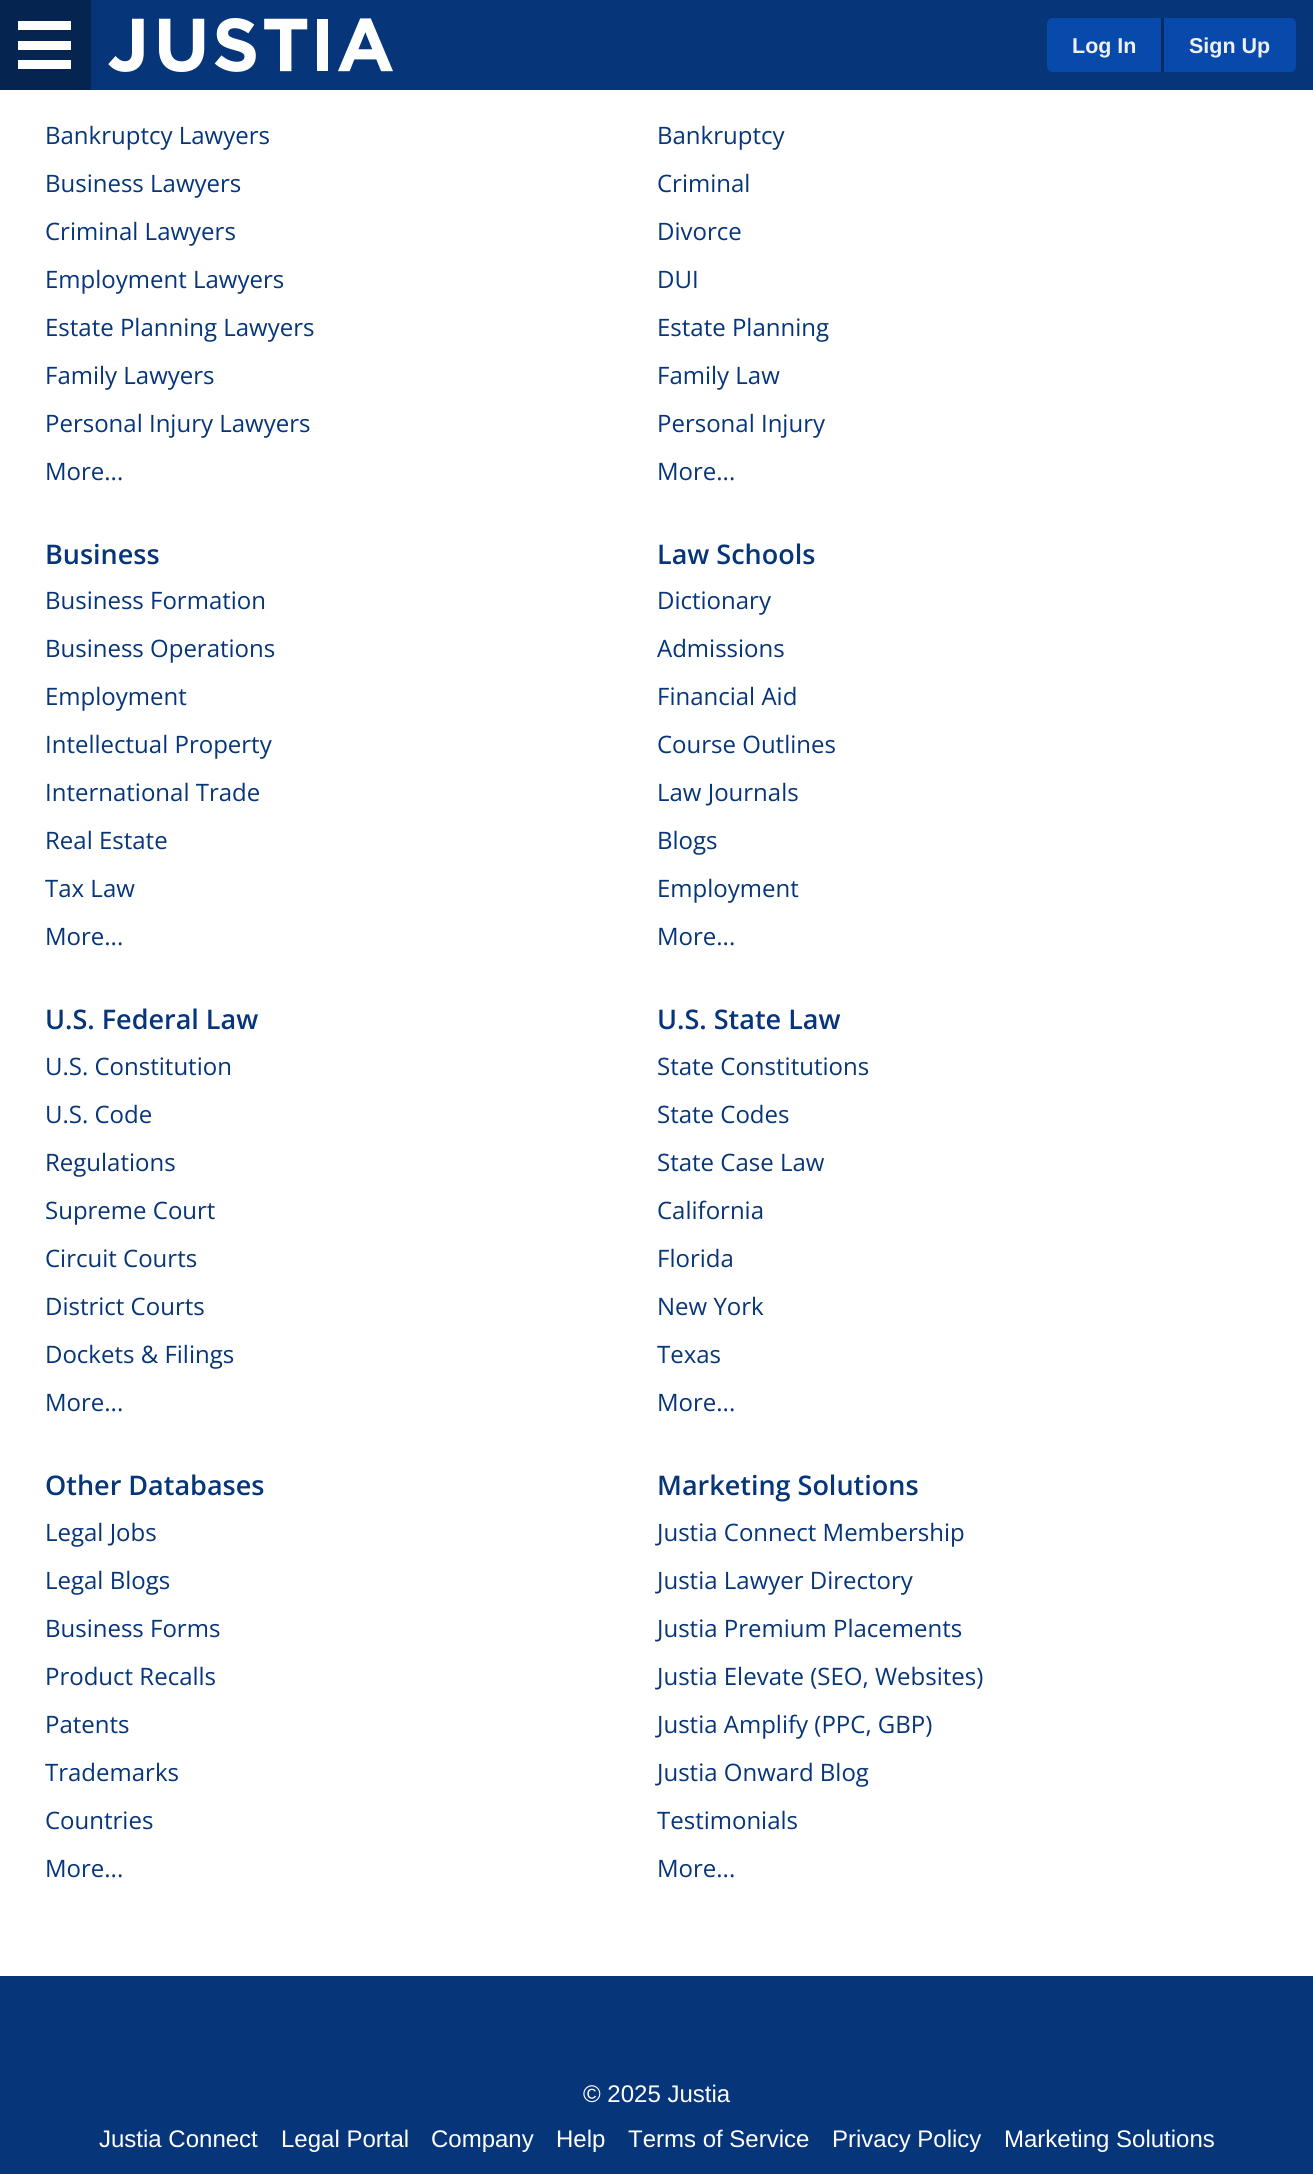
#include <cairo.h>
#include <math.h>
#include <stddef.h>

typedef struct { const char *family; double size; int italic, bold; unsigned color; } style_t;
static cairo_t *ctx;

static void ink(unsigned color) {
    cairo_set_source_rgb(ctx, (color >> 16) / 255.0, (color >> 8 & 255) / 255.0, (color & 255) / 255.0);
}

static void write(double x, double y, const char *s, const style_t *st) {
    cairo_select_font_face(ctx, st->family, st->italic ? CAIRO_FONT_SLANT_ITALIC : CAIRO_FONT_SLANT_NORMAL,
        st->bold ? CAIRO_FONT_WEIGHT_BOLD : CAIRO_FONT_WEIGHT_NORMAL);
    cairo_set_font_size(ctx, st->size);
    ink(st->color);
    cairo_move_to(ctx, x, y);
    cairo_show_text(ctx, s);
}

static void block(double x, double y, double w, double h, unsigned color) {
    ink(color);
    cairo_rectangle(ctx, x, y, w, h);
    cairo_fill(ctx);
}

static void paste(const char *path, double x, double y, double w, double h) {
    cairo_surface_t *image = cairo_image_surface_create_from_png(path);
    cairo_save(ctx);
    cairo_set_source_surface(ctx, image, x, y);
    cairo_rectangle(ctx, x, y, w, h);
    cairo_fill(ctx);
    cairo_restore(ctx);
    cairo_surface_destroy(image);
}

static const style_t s1 = {"Liberation Sans", 21.5, 0, 1, 0xefefef};
static const style_t s2 = {"Open Sans", 24, 0, 0, 0x06357a};
static const style_t s3 = {"Open Sans SemiBold", 27, 0, 0, 0x06357a};
static const style_t s4 = {"Liberation Sans", 24, 0, 0, 0xffffff};

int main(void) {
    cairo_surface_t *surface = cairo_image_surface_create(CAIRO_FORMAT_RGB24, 1313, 2174);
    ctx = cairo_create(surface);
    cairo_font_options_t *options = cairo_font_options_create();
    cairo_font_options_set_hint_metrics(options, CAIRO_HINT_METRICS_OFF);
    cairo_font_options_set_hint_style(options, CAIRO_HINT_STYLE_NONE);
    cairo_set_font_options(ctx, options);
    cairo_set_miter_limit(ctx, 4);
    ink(0xffffff);
    cairo_paint(ctx);
    block(91, 0, 1222, 90, 0x06357a);
    block(0, 0, 91, 90, 0x052450);
    block(18, 21, 53, 9, 0xffffff);
    block(18, 41, 53, 9, 0xffffff);
    block(18, 60, 53, 9, 0xffffff);
    paste("pic1.png", 108, 18, 285, 54);
    ink(0x084aab);
    cairo_new_path(ctx);
    cairo_move_to(ctx, 1053, 18);
    cairo_line_to(ctx, 1161, 18);
    cairo_line_to(ctx, 1161, 72);
    cairo_line_to(ctx, 1053, 72);
    cairo_curve_to(ctx, 1049.5, 72, 1047, 69.5, 1047, 66);
    cairo_line_to(ctx, 1047, 24);
    cairo_curve_to(ctx, 1047, 20.5, 1049.5, 18, 1053, 18);
    cairo_close_path(ctx);
    cairo_fill(ctx);
    write(1072, 53, "Log In", &s1);
    ink(0x084aab);
    cairo_new_path(ctx);
    cairo_move_to(ctx, 1161, 18);
    cairo_line_to(ctx, 1290, 18);
    cairo_curve_to(ctx, 1293.5, 18, 1296, 20.5, 1296, 24);
    cairo_line_to(ctx, 1296, 66);
    cairo_curve_to(ctx, 1296, 69.5, 1293.5, 72, 1290, 72);
    cairo_line_to(ctx, 1161, 72);
    cairo_close_path(ctx);
    cairo_fill(ctx);
    block(1161, 18, 3, 54, 0x052a60);
    write(1189, 53, "Sign Up", &s1);
    write(45, 144, "Bankruptcy Lawyers", &s2);
    write(45, 192, "Business Lawyers", &s2);
    write(45, 240, "Criminal Lawyers", &s2);
    write(45, 288, "Employment Lawyers", &s2);
    write(45, 336, "Estate Planning Lawyers", &s2);
    write(45, 384, "Family Lawyers", &s2);
    write(45, 432, "Personal Injury Lawyers", &s2);
    write(45, 480, "More...", &s2);
    write(657, 144, "Bankruptcy", &s2);
    write(657, 192, "Criminal", &s2);
    write(657, 240, "Divorce", &s2);
    write(657, 288, "DUI", &s2);
    write(657, 336, "Estate Planning", &s2);
    write(657, 384, "Family Law", &s2);
    write(657, 432, "Personal Injury", &s2);
    write(657, 480, "More...", &s2);
    write(45, 564, "Business", &s3);
    write(45, 609, "Business Formation", &s2);
    write(45, 657, "Business Operations", &s2);
    write(45, 705, "Employment", &s2);
    write(45, 753, "Intellectual Property", &s2);
    write(45, 801, "International Trade", &s2);
    write(45, 849, "Real Estate", &s2);
    write(45, 897, "Tax Law", &s2);
    write(45, 945, "More...", &s2);
    write(657, 564, "Law Schools", &s3);
    write(657, 609, "Dictionary", &s2);
    write(657, 657, "Admissions", &s2);
    write(657, 705, "Financial Aid", &s2);
    write(657, 753, "Course Outlines", &s2);
    write(657, 801, "Law Journals", &s2);
    write(657, 849, "Blogs", &s2);
    write(657, 897, "Employment", &s2);
    write(657, 945, "More...", &s2);
    write(45, 1029, "U.S. Federal Law", &s3);
    write(45, 1075, "U.S. Constitution", &s2);
    write(45, 1123, "U.S. Code", &s2);
    write(45, 1171, "Regulations", &s2);
    write(45, 1219, "Supreme Court", &s2);
    write(45, 1267, "Circuit Courts", &s2);
    write(45, 1315, "District Courts", &s2);
    write(45, 1363, "Dockets & Filings", &s2);
    write(45, 1411, "More...", &s2);
    write(657, 1029, "U.S. State Law", &s3);
    write(657, 1075, "State Constitutions", &s2);
    write(657, 1123, "State Codes", &s2);
    write(657, 1171, "State Case Law", &s2);
    write(657, 1219, "California", &s2);
    write(657, 1267, "Florida", &s2);
    write(657, 1315, "New York", &s2);
    write(657, 1363, "Texas", &s2);
    write(657, 1411, "More...", &s2);
    write(45, 1495, "Other Databases", &s3);
    write(45, 1541, "Legal Jobs", &s2);
    write(45, 1589, "Legal Blogs", &s2);
    write(45, 1637, "Business Forms", &s2);
    write(45, 1685, "Product Recalls", &s2);
    write(45, 1733, "Patents", &s2);
    write(45, 1781, "Trademarks", &s2);
    write(45, 1829, "Countries", &s2);
    write(45, 1877, "More...", &s2);
    write(657, 1495, "Marketing Solutions", &s3);
    write(657, 1541, "Justia Connect Membership", &s2);
    write(657, 1589, "Justia Lawyer Directory", &s2);
    write(657, 1637, "Justia Premium Placements", &s2);
    write(657, 1685, "Justia Elevate (SEO, Websites)", &s2);
    write(657, 1733, "Justia Amplify (PPC, GBP)", &s2);
    write(657, 1781, "Justia Onward Blog", &s2);
    write(657, 1829, "Testimonials", &s2);
    write(657, 1877, "More...", &s2);
    block(0, 1976, 1313, 198, 0x06357a);
    write(583, 2102, "© 2025 Justia", &s4);
    write(99, 2147, "Justia Connect", &s4);
    write(281, 2147, "Legal Portal", &s4);
    write(431, 2147, "Company", &s4);
    write(556, 2147, "Help", &s4);
    write(628, 2147, "Terms of Service", &s4);
    write(832, 2147, "Privacy Policy", &s4);
    write(1004, 2147, "Marketing Solutions", &s4);
    cairo_surface_write_to_png(surface, "screenshot.png");
    cairo_font_options_destroy(options);
    cairo_destroy(ctx);
    cairo_surface_destroy(surface);
    return 0;
}
